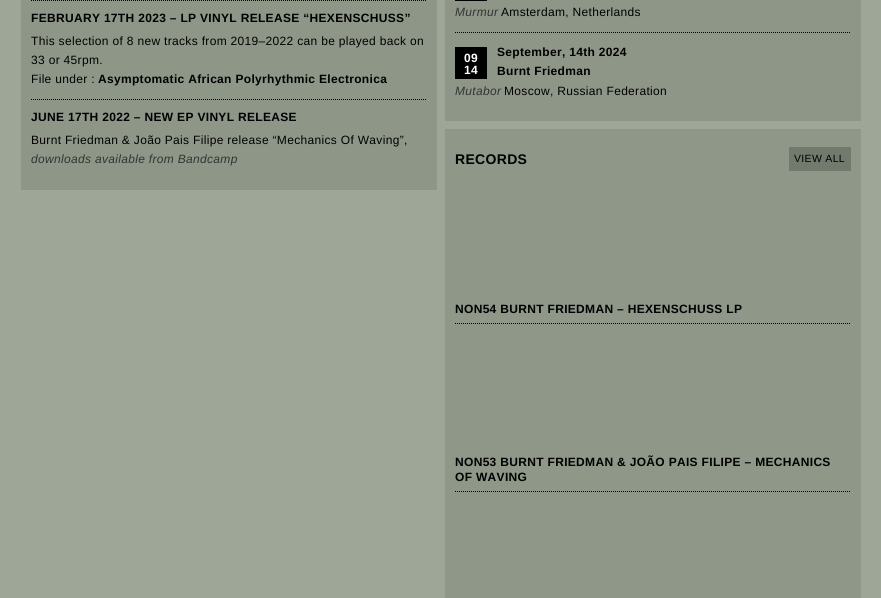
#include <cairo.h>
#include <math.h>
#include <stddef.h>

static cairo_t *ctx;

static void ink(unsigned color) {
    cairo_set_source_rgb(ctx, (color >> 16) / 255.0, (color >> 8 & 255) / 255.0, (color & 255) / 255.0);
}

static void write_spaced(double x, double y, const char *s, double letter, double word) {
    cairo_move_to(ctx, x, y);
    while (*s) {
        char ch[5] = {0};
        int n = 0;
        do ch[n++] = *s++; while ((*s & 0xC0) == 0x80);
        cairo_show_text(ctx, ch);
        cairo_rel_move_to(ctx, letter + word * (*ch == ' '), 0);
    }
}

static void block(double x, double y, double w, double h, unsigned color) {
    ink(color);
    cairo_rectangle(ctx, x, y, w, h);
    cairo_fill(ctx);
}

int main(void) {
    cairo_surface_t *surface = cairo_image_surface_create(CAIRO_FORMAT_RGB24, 881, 598);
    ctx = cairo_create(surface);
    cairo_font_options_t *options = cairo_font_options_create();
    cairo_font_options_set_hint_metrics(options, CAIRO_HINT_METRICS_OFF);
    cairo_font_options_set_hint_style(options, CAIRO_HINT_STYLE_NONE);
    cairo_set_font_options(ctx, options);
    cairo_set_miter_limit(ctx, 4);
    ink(0x9ea797);
    cairo_paint(ctx);
    block(21, 0, 416, 190, 0x8e9688);
    cairo_new_path(ctx);
    cairo_move_to(ctx, 31, 0.5);
    cairo_line_to(ctx, 427, 0.5);
    ink(0x000000);
    cairo_set_line_width(ctx, 1);
    cairo_set_dash(ctx, (double[]){1, 1}, 2, 0);
    cairo_stroke(ctx);
    cairo_new_path(ctx);
    cairo_move_to(ctx, 31, 99.5);
    cairo_line_to(ctx, 427, 99.5);
    cairo_stroke(ctx);
    cairo_select_font_face(ctx, "Liberation Sans", CAIRO_FONT_SLANT_NORMAL, CAIRO_FONT_WEIGHT_BOLD);
    cairo_set_font_size(ctx, 12);
    write_spaced(31, 22, "FEBRUARY 17TH 2023 – LP VINYL RELEASE “HEXENSCHUSS”", 0.32, 0);
    cairo_select_font_face(ctx, "Liberation Sans", CAIRO_FONT_SLANT_NORMAL, CAIRO_FONT_WEIGHT_NORMAL);
    write_spaced(31, 45, "This selection of 8 new tracks from 2019–2022 can be played back on", 0.32, 0);
    write_spaced(31, 64, "33 or 45rpm.", 0.32, 0);
    write_spaced(31, 83, "File under :", 0.32, 0);
    cairo_select_font_face(ctx, "Liberation Sans", CAIRO_FONT_SLANT_NORMAL, CAIRO_FONT_WEIGHT_BOLD);
    write_spaced(98, 83, "Asymptomatic African Polyrhythmic Electronica", 0.32, 0);
    write_spaced(31, 121, "JUNE 17TH 2022 – NEW EP VINYL RELEASE", 0.32, 0);
    cairo_select_font_face(ctx, "Liberation Sans", CAIRO_FONT_SLANT_NORMAL, CAIRO_FONT_WEIGHT_NORMAL);
    write_spaced(31, 144, "Burnt Friedman & João Pais Filipe release “Mechanics Of Waving”,", 0.32, 0);
    cairo_select_font_face(ctx, "Liberation Sans", CAIRO_FONT_SLANT_ITALIC, CAIRO_FONT_WEIGHT_NORMAL);
    ink(0x333333);
    write_spaced(31, 163, "downloads available from Bandcamp", 0.32, 0);
    block(445, 0, 416, 121, 0x8e9688);
    cairo_new_path(ctx);
    cairo_move_to(ctx, 455, 32.5);
    cairo_line_to(ctx, 851, 32.5);
    ink(0x000000);
    cairo_stroke(ctx);
    block(455, 0, 32, 1, 0x000000);
    ink(0x333333);
    write_spaced(455, 16, "Murmur", 0.32, 0);
    cairo_select_font_face(ctx, "Liberation Sans", CAIRO_FONT_SLANT_NORMAL, CAIRO_FONT_WEIGHT_NORMAL);
    ink(0x000000);
    write_spaced(501, 16, "Amsterdam, Netherlands", 0.32, 0);
    block(455, 47, 32, 32, 0x000000);
    cairo_select_font_face(ctx, "Liberation Sans", CAIRO_FONT_SLANT_NORMAL, CAIRO_FONT_WEIGHT_BOLD);
    ink(0xffffff);
    write_spaced(464, 62, "09", 0.32, 0);
    write_spaced(464, 74, "14", 0.32, 0);
    ink(0x000000);
    write_spaced(497, 56, "September, 14th 2024", 0.32, 0);
    write_spaced(497, 75, "Burnt Friedman", 0.32, 0);
    cairo_select_font_face(ctx, "Liberation Sans", CAIRO_FONT_SLANT_ITALIC, CAIRO_FONT_WEIGHT_NORMAL);
    ink(0x333333);
    write_spaced(455, 95, "Mutabor", 0.32, 0);
    cairo_select_font_face(ctx, "Liberation Sans", CAIRO_FONT_SLANT_NORMAL, CAIRO_FONT_WEIGHT_NORMAL);
    ink(0x000000);
    write_spaced(504, 95, "Moscow, Russian Federation", 0.32, 0);
    block(445, 129, 416, 469, 0x8e9788);
    cairo_select_font_face(ctx, "Liberation Sans", CAIRO_FONT_SLANT_NORMAL, CAIRO_FONT_WEIGHT_BOLD);
    cairo_set_font_size(ctx, 14);
    ink(0x000000);
    write_spaced(455, 164, "RECORDS", 0.32, 0);
    block(789, 147, 62, 24, 0x72796d);
    cairo_select_font_face(ctx, "Liberation Sans", CAIRO_FONT_SLANT_NORMAL, CAIRO_FONT_WEIGHT_NORMAL);
    cairo_set_font_size(ctx, 10.5);
    ink(0x000000);
    write_spaced(794, 162, "VIEW ALL", 0.32, 0);
    cairo_new_path(ctx);
    cairo_move_to(ctx, 455, 323.5);
    cairo_line_to(ctx, 851, 323.5);
    cairo_stroke(ctx);
    cairo_select_font_face(ctx, "Liberation Sans", CAIRO_FONT_SLANT_NORMAL, CAIRO_FONT_WEIGHT_BOLD);
    cairo_set_font_size(ctx, 12);
    write_spaced(455, 313, "NON54 BURNT FRIEDMAN – HEXENSCHUSS LP", 0.32, 0);
    cairo_new_path(ctx);
    cairo_move_to(ctx, 455, 491.5);
    cairo_line_to(ctx, 851, 491.5);
    cairo_stroke(ctx);
    write_spaced(455, 466, "NON53 BURNT FRIEDMAN & JOÃO PAIS FILIPE – MECHANICS", 0.32, 0);
    write_spaced(455, 481, "OF WAVING", 0.32, 0);
    cairo_surface_write_to_png(surface, "screenshot.png");
    cairo_font_options_destroy(options);
    cairo_destroy(ctx);
    cairo_surface_destroy(surface);
    return 0;
}
